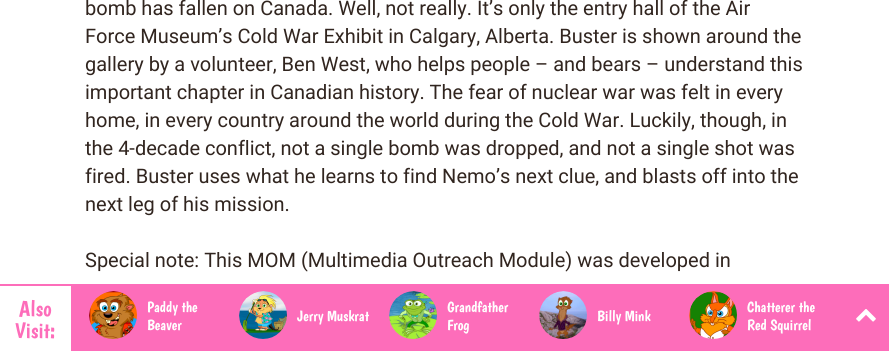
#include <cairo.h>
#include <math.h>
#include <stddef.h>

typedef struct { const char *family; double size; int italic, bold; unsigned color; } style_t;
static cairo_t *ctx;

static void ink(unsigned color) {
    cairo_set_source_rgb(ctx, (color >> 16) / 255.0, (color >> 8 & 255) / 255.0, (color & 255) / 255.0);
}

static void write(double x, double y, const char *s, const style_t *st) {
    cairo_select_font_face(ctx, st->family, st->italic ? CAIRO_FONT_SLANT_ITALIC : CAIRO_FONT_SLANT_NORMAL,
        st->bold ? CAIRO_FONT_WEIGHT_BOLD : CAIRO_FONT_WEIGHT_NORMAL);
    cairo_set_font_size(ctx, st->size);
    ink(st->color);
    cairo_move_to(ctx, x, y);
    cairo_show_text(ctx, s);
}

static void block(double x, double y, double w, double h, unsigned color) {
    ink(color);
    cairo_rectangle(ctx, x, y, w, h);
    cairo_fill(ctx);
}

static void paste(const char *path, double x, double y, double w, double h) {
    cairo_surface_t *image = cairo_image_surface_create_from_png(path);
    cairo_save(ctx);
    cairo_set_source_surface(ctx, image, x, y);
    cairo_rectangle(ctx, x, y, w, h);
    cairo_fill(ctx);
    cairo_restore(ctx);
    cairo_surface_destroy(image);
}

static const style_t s1 = {"Roboto", 20, 0, 0, 0x31251f};
static const style_t s2 = {"Boogaloo", 22, 0, 0, 0xfd6dba};
static const style_t s3 = {"Boogaloo", 15, 0, 0, 0xffffff};

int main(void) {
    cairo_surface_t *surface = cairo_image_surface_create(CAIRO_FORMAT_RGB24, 889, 351);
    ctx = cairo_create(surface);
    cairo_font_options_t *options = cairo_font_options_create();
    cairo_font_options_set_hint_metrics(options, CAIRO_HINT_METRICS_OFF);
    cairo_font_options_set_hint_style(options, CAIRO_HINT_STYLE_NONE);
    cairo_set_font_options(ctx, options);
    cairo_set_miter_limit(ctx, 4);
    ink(0xffffff);
    cairo_paint(ctx);
    write(85, 15, "bomb has fallen on Canada. Well, not really. It’s only the entry hall of the Air", &s1);
    write(85, 43, "Force Museum’s Cold War Exhibit in Calgary, Alberta. Buster is shown around the", &s1);
    write(85, 71, "gallery by a volunteer, Ben West, who helps people – and bears – understand this", &s1);
    write(85, 99, "important chapter in Canadian history. The fear of nuclear war was felt in every", &s1);
    write(85, 127, "home, in every country around the world during the Cold War. Luckily, though, in", &s1);
    write(85, 155, "the 4-decade conflict, not a single bomb was dropped, and not a single shot was", &s1);
    write(85, 183, "fired. Buster uses what he learns to find Nemo’s next clue, and blasts off into the", &s1);
    write(85, 211, "next leg of his mission.", &s1);
    write(85, 267, "Special note: This MOM (Multimedia Outreach Module) was developed in", &s1);
    block(0, 284, 889, 67, 0xfd6dba);
    block(0, 286, 71, 65, 0xffffff);
    write(19, 316, "Also", &s2);
    write(15, 338, "Visit:", &s2);
    paste("pic1.png", 89, 291, 48, 48);
    write(147, 312, "Paddy the", &s3);
    write(147, 330, "Beaver", &s3);
    paste("pic2.png", 239, 291, 48, 48);
    write(297, 321, "Jerry Muskrat", &s3);
    paste("pic3.png", 389, 291, 48, 48);
    write(447, 312, "Grandfather", &s3);
    write(447, 330, "Frog", &s3);
    paste("pic4.png", 539, 291, 48, 48);
    write(597, 321, "Billy Mink", &s3);
    paste("pic5.png", 689, 291, 48, 48);
    write(747, 312, "Chatterer the", &s3);
    write(747, 330, "Red Squirrel", &s3);
    paste("pic6.png", 856, 309, 20, 13);
    cairo_surface_write_to_png(surface, "screenshot.png");
    cairo_font_options_destroy(options);
    cairo_destroy(ctx);
    cairo_surface_destroy(surface);
    return 0;
}
